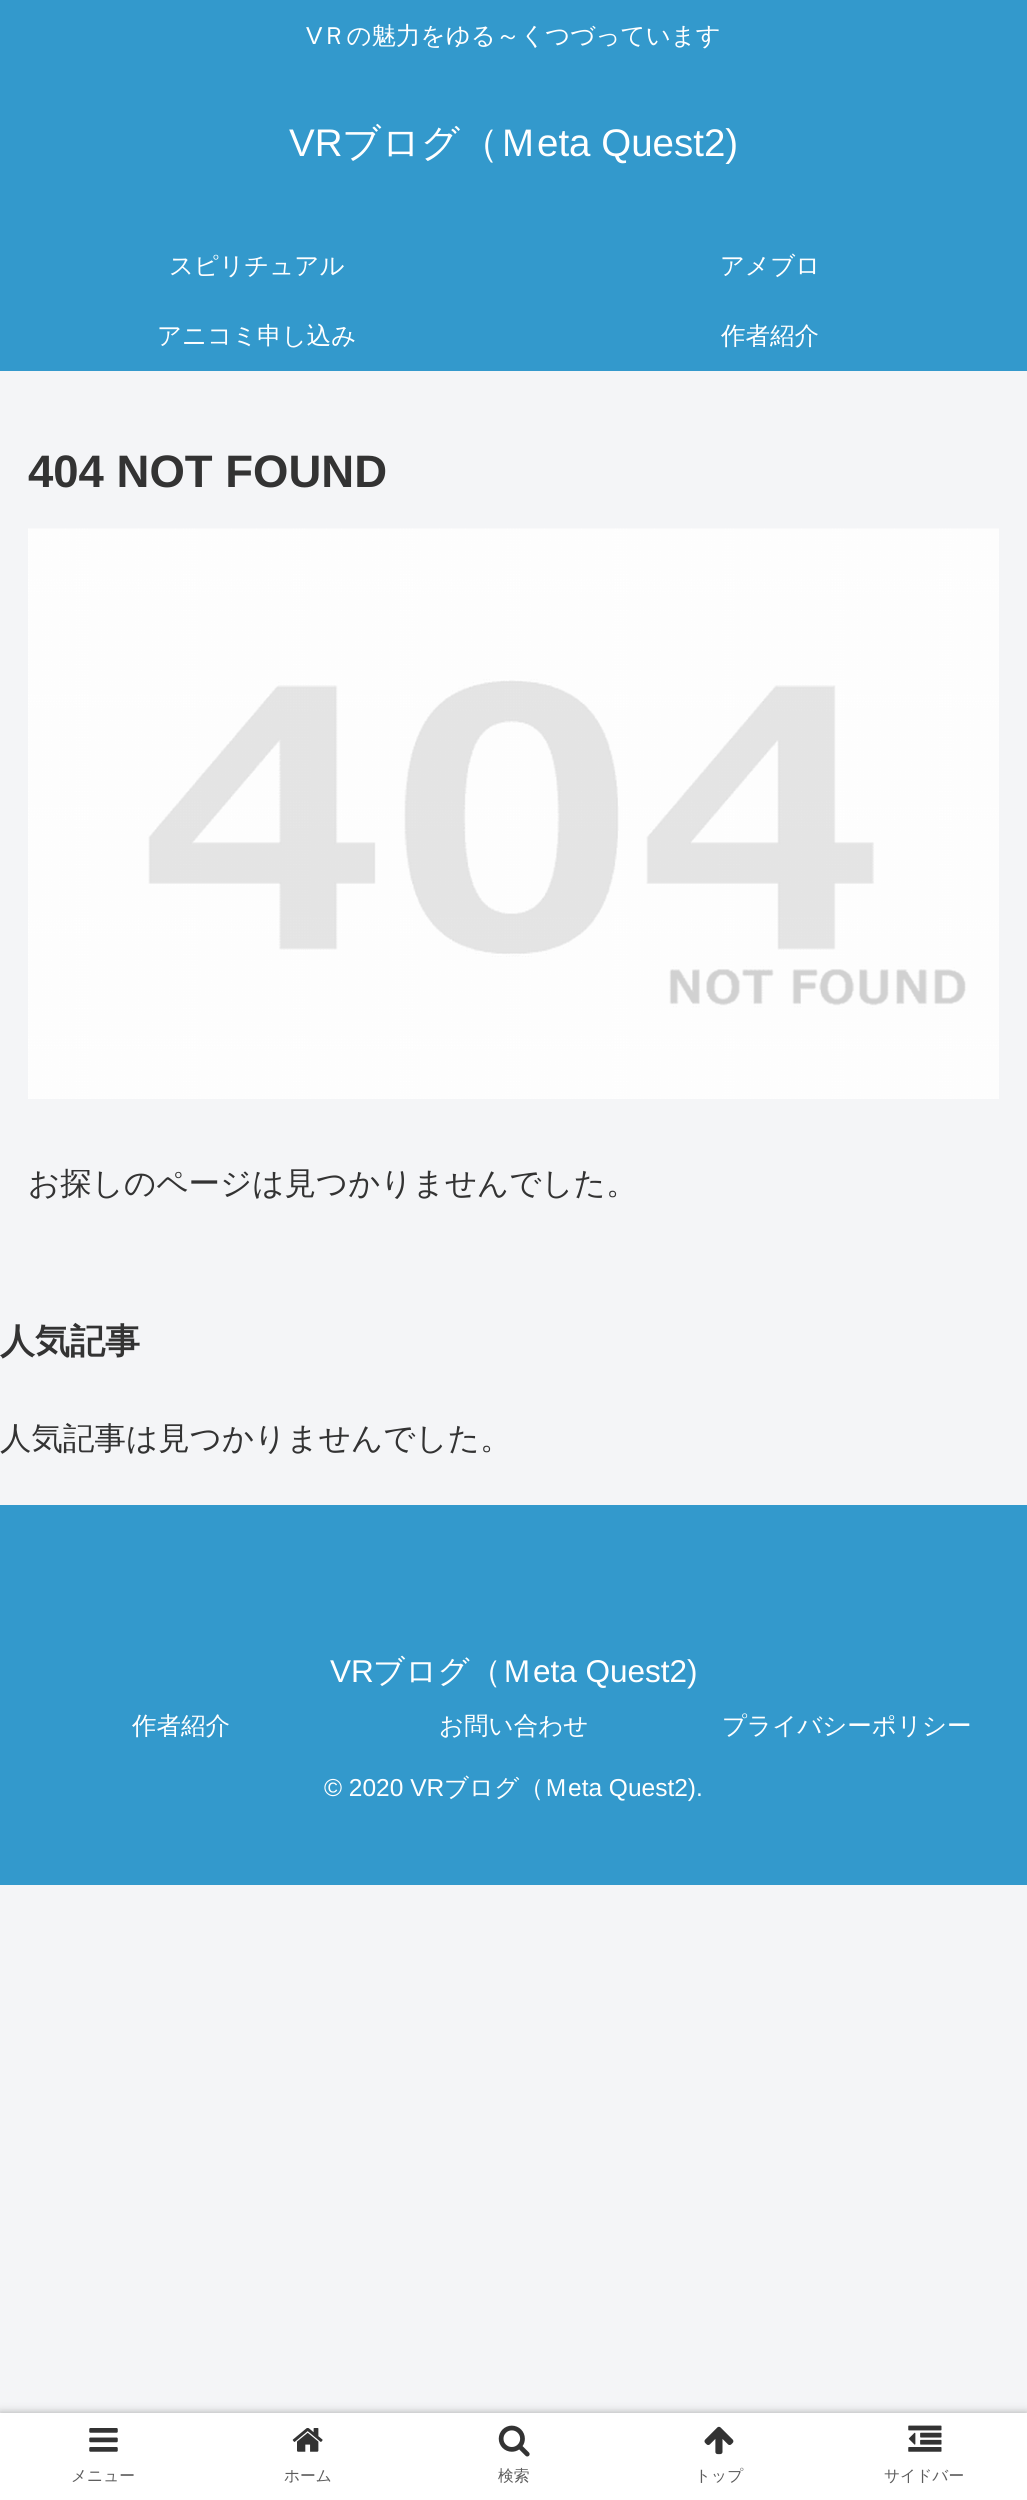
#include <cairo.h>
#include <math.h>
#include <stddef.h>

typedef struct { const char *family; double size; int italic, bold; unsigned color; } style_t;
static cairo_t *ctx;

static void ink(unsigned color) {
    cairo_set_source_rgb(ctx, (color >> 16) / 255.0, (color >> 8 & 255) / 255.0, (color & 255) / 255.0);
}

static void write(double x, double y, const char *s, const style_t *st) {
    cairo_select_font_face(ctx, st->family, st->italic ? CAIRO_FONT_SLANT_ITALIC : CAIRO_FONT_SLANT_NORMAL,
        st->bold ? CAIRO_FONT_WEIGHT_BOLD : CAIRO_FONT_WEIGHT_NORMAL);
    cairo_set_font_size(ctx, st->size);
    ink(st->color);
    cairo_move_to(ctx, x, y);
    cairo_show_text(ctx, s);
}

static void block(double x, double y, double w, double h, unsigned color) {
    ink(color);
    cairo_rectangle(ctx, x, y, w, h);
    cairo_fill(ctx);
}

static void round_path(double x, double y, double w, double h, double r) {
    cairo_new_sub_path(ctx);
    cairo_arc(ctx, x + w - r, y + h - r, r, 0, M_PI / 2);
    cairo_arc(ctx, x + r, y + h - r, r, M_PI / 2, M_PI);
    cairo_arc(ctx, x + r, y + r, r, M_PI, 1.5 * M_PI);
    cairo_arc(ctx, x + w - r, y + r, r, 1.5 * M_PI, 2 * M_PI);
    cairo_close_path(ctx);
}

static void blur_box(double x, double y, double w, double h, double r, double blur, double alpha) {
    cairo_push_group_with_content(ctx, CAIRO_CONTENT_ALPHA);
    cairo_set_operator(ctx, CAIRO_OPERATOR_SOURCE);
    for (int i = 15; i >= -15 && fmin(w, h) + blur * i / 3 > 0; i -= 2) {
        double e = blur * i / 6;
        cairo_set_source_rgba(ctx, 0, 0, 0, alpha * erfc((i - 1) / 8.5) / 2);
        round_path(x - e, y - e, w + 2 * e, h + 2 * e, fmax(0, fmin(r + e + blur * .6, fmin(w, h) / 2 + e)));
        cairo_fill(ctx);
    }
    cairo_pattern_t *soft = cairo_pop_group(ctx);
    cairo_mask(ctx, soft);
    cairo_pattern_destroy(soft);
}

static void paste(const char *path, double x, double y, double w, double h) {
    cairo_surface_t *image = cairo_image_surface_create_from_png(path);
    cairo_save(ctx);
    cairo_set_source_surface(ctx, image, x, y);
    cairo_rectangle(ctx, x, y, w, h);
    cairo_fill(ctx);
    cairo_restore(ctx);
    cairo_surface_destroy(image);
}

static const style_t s1 = {"Liberation Sans", 24.5, 0, 0, 0xffffff};
static const style_t s2 = {"WenQuanYi Zen Hei Medium", 24.5, 0, 0, 0xffffff};
static const style_t s3 = {"Liberation Sans", 38.5, 0, 0, 0xffffff};
static const style_t s4 = {"WenQuanYi Zen Hei Medium", 38.5, 0, 0, 0xffffff};
static const style_t s5 = {"Liberation Sans", 45.5, 0, 1, 0x333333};
static const style_t s6 = {"WenQuanYi Zen Hei Medium", 31.5, 0, 0, 0x333333};
static const style_t s7 = {"WenQuanYi Zen Hei", 35, 0, 1, 0x333333};
static const style_t s8 = {"Liberation Sans", 31.5, 0, 0, 0xffffff};
static const style_t s9 = {"WenQuanYi Zen Hei Medium", 31.5, 0, 0, 0xffffff};
static const style_t s10 = {"WenQuanYi Zen Hei Medium", 15.75, 0, 0, 0x5c5c5c};

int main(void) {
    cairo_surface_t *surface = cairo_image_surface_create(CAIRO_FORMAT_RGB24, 1027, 2500);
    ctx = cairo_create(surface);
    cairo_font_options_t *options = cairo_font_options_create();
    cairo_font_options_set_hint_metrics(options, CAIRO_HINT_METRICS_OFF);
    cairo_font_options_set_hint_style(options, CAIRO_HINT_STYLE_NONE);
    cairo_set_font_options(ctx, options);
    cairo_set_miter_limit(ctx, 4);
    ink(0xf4f5f7);
    cairo_paint(ctx);
    block(0, 0, 1027, 371, 0x3399cc);
    write(306, 44, "V", &s1);
    write(322, 44, "Ｒの魅力をゆる～くつづっています", &s2);
    write(289, 156, "VR", &s3);
    write(342, 156, "ブログ（Ｍ", &s4);
    write(537, 156, "eta Quest2)", &s3);
    write(169, 274, "スピリチュアル", &s2);
    write(720, 274, "アメブロ", &s2);
    write(157, 344, "アニコミ申し込み", &s2);
    write(721, 344, "作者紹介", &s2);
    write(28, 487, "404 NOT FOUND", &s5);
    paste("pic1.png", 28, 528, 971, 571);
    write(28, 1194, "お探しのページは見つかりませんでした。", &s6);
    write(0, 1353, "人気記事", &s7);
    write(0, 1449, "人気記事は見つかりませんでした。", &s6);
    block(0, 1505, 1027, 380, 0x3399cc);
    write(330, 1682, "VR", &s8);
    write(373, 1682, "ブログ（Ｍ", &s9);
    write(533, 1682, "eta Quest2)", &s8);
    write(132, 1734, "作者紹介", &s2);
    write(439, 1734, "お問い合わせ", &s2);
    write(722, 1734, "プライバシーポリシー", &s2);
    write(324, 1796, "© 2020 VR", &s1);
    write(444, 1796, "ブログ（Ｍ", &s2);
    write(568, 1796, "eta Quest2).", &s1);
    ink(0xa9a9a9);
    blur_box(0, 2413, 1027, 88, 0, 4.5, 1);
    block(0, 2413, 1027, 87, 0xffffff);
    paste("pic2.png", 89, 2428, 29, 24);
    write(71, 2481, "メニュー", &s10);
    paste("pic3.png", 292, 2428, 31, 24);
    write(284, 2481, "ホーム", &s10);
    paste("pic4.png", 498, 2425, 32, 32);
    write(498, 2481, "検索", &s10);
    paste("pic5.png", 704, 2426, 30, 29);
    write(695, 2481, "トップ", &s10);
    paste("pic6.png", 908, 2425, 34, 27);
    write(884, 2481, "サイドバー", &s10);
    cairo_surface_write_to_png(surface, "screenshot.png");
    cairo_font_options_destroy(options);
    cairo_destroy(ctx);
    cairo_surface_destroy(surface);
    return 0;
}
